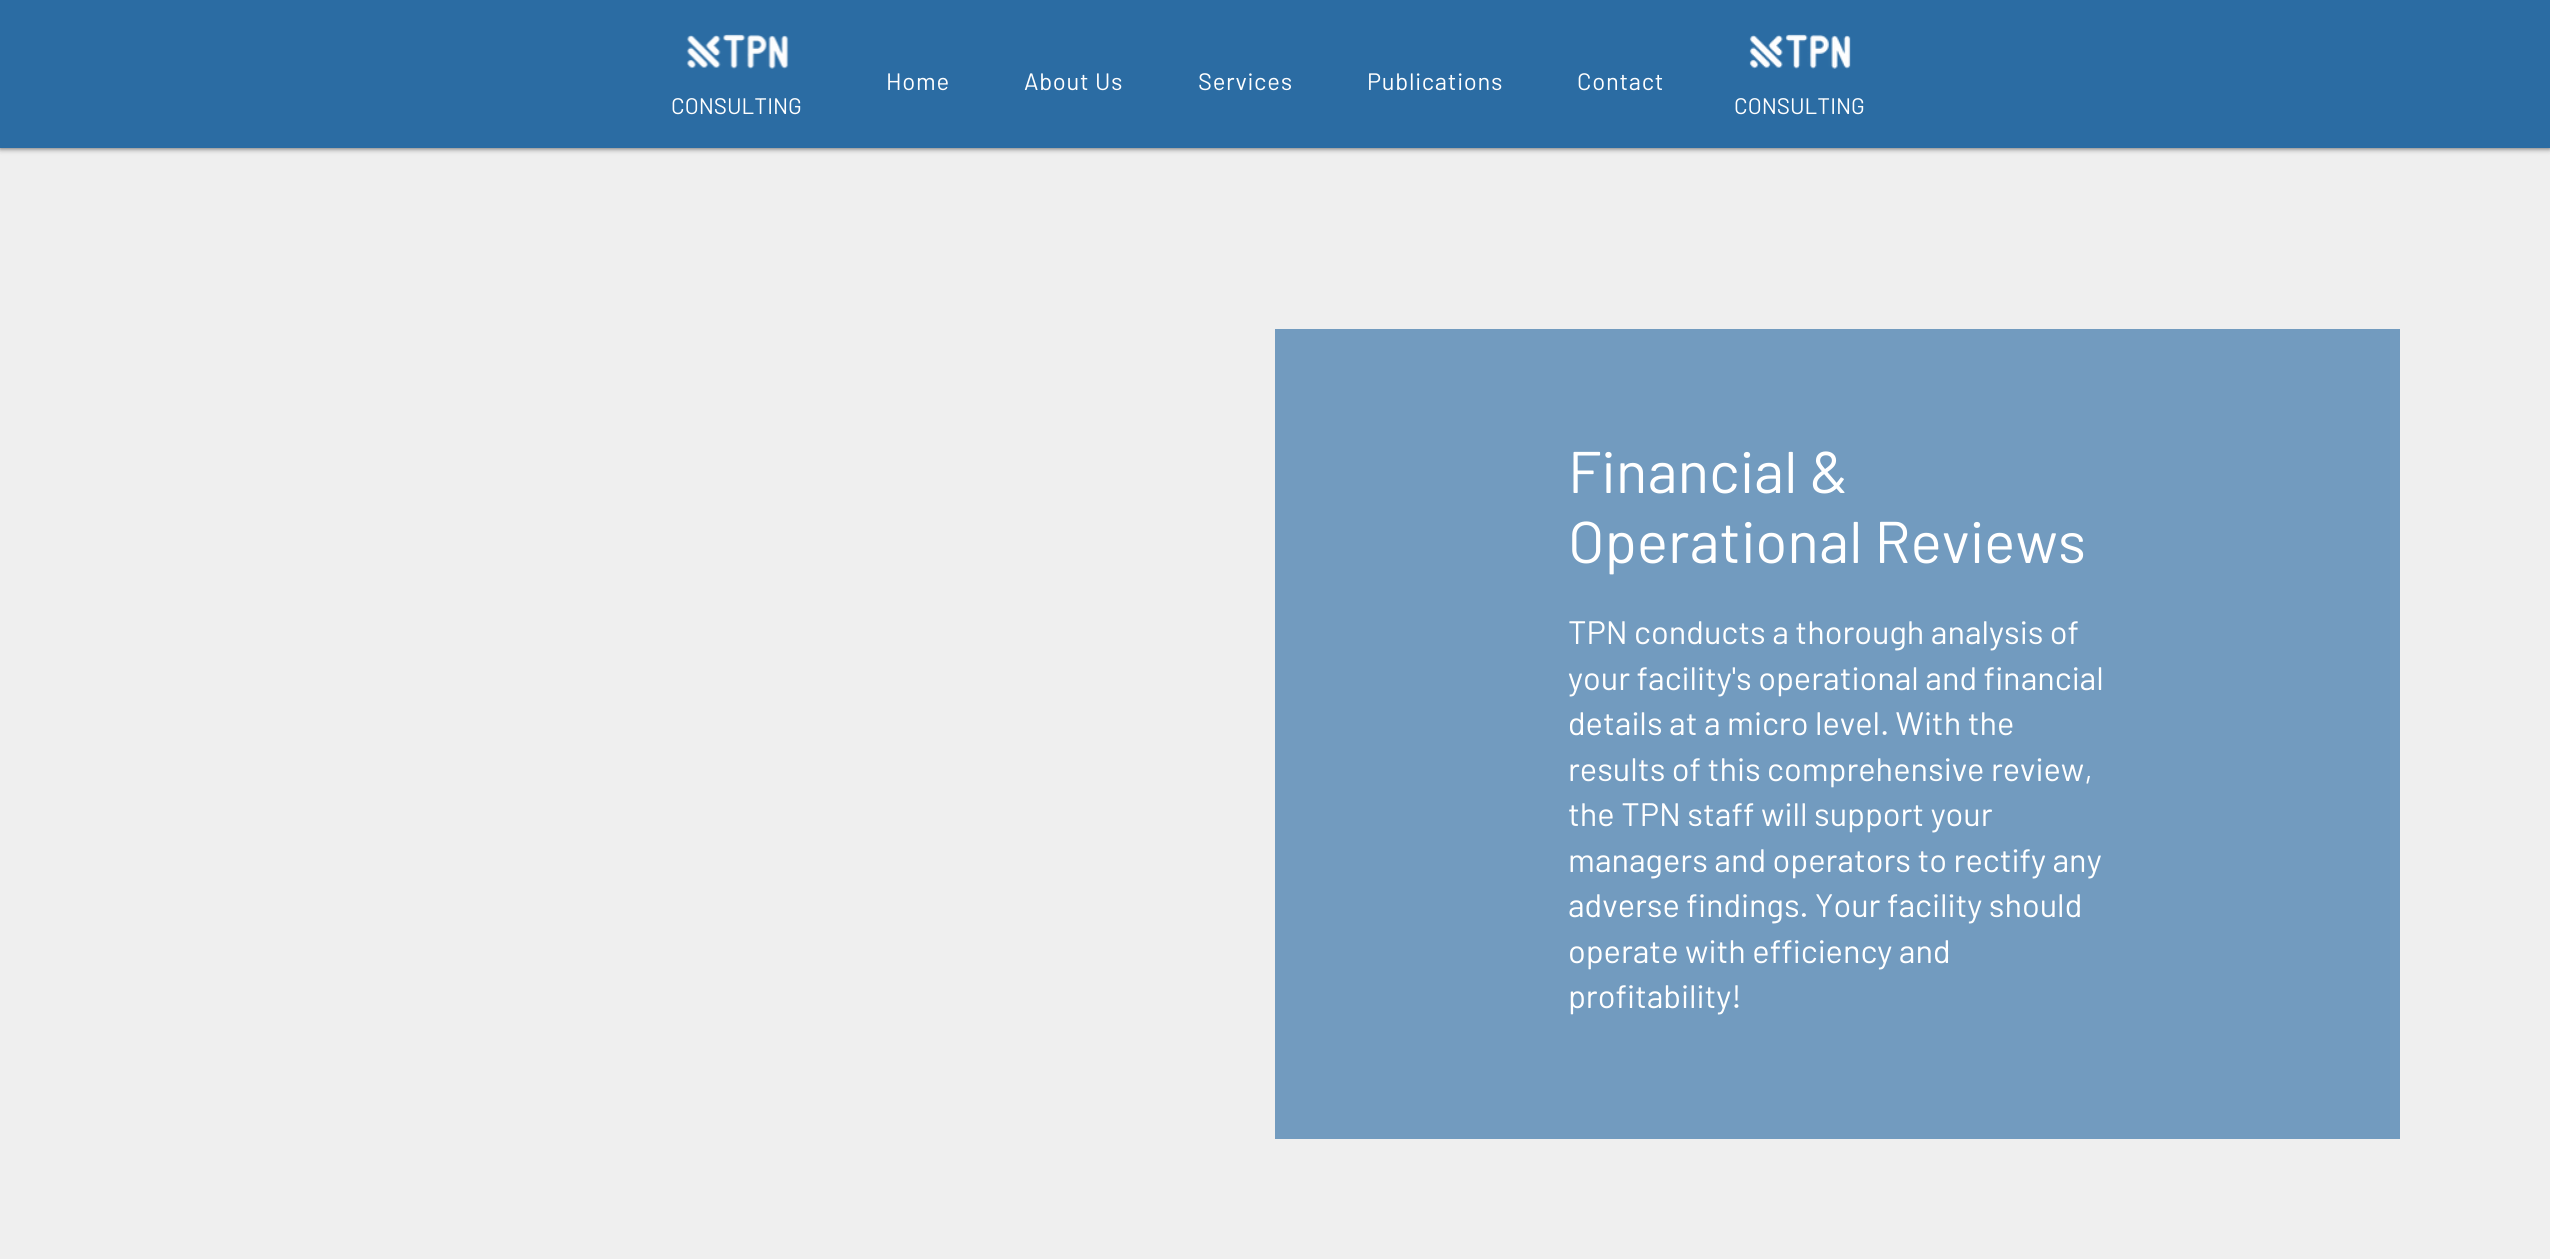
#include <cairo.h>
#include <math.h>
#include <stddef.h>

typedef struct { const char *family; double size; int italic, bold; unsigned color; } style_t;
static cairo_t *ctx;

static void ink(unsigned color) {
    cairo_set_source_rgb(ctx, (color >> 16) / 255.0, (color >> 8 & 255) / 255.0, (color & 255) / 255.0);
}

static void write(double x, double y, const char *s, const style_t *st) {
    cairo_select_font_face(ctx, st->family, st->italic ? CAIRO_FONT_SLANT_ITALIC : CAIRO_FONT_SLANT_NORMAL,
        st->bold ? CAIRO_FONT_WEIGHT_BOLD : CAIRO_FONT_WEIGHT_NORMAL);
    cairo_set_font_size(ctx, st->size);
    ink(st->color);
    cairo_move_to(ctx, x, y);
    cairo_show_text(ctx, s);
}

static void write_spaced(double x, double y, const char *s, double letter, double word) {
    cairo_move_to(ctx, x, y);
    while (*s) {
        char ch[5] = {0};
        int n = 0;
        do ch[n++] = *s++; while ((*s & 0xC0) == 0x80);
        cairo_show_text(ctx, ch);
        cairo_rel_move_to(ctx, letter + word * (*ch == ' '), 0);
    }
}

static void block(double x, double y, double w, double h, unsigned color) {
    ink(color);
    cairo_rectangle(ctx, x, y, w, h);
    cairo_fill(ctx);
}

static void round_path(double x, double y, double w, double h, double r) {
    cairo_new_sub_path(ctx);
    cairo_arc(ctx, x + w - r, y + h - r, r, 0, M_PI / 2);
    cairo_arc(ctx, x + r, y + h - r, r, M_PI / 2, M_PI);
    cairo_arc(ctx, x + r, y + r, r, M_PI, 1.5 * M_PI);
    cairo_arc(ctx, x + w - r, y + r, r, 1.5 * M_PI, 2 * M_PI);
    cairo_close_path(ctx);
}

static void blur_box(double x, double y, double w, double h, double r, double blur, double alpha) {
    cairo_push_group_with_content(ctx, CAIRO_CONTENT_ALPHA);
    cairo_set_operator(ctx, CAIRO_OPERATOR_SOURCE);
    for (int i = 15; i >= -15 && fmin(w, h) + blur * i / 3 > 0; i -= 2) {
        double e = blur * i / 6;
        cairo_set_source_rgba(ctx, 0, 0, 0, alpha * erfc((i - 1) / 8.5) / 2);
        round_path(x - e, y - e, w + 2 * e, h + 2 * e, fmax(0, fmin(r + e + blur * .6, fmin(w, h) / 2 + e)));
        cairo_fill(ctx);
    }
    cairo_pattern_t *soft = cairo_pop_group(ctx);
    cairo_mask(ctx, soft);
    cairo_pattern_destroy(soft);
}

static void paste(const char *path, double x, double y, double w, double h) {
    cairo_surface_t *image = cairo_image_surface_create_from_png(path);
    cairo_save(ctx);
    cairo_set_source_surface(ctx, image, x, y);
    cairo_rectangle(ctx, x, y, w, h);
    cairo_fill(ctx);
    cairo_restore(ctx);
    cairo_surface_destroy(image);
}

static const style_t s1 = {"Barlow", 22.5, 0, 0, 0xffffff};
static const style_t s2 = {"Barlow", 58.75, 0, 0, 0xffffff};
static const style_t s3 = {"Barlow", 32.5, 0, 0, 0xffffff};

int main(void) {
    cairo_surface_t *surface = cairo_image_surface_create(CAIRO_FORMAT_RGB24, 2550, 1259);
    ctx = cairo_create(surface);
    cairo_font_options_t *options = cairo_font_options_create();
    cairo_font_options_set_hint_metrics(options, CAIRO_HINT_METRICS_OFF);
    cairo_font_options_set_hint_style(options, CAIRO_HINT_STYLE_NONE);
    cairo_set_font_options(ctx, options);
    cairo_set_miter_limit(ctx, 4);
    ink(0xefefef);
    cairo_paint(ctx);
    ink(0x000000);
    blur_box(0, 0, 2550, 148, 0, 3, 0.7);
    block(0, 0, 2550, 148, 0x2b6ca3);
    paste("pic1.png", 686, 34, 103, 35);
    paste("pic2.png", 1749, 34, 102, 35);
    cairo_select_font_face(ctx, "Barlow", CAIRO_FONT_SLANT_NORMAL, CAIRO_FONT_WEIGHT_NORMAL);
    cairo_set_font_size(ctx, 23.75);
    ink(0xffffff);
    write_spaced(886, 90, "Home", 0.75, 0);
    write_spaced(1024, 90, "About Us", 0.75, 0);
    write_spaced(1198, 90, "Services", 0.75, 0);
    write_spaced(1367, 90, "Publications", 0.75, 0);
    write_spaced(1577, 90, "Contact", 0.75, 0);
    write(671, 114, "CONSULTING", &s1);
    write(1734, 114, "CONSULTING", &s1);
    block(1275, 329, 1125, 810, 0x729bbf);
    write(1568, 493, "Financial &", &s2);
    write(1568, 563, "Operational Reviews", &s2);
    write(1568, 644, "TPN conducts a thorough analysis of", &s3);
    write(1568, 690, "your facility's operational and financial", &s3);
    write(1568, 735, "details at a micro level. With the", &s3);
    write(1568, 781, "results of this comprehensive review,", &s3);
    write(1568, 826, "the TPN staff will support your", &s3);
    write(1568, 872, "managers and operators to rectify any", &s3);
    write(1568, 917, "adverse findings. Your facility should", &s3);
    write(1568, 963, "operate with efficiency and", &s3);
    write(1568, 1008, "profitability!", &s3);
    cairo_surface_write_to_png(surface, "screenshot.png");
    cairo_font_options_destroy(options);
    cairo_destroy(ctx);
    cairo_surface_destroy(surface);
    return 0;
}
